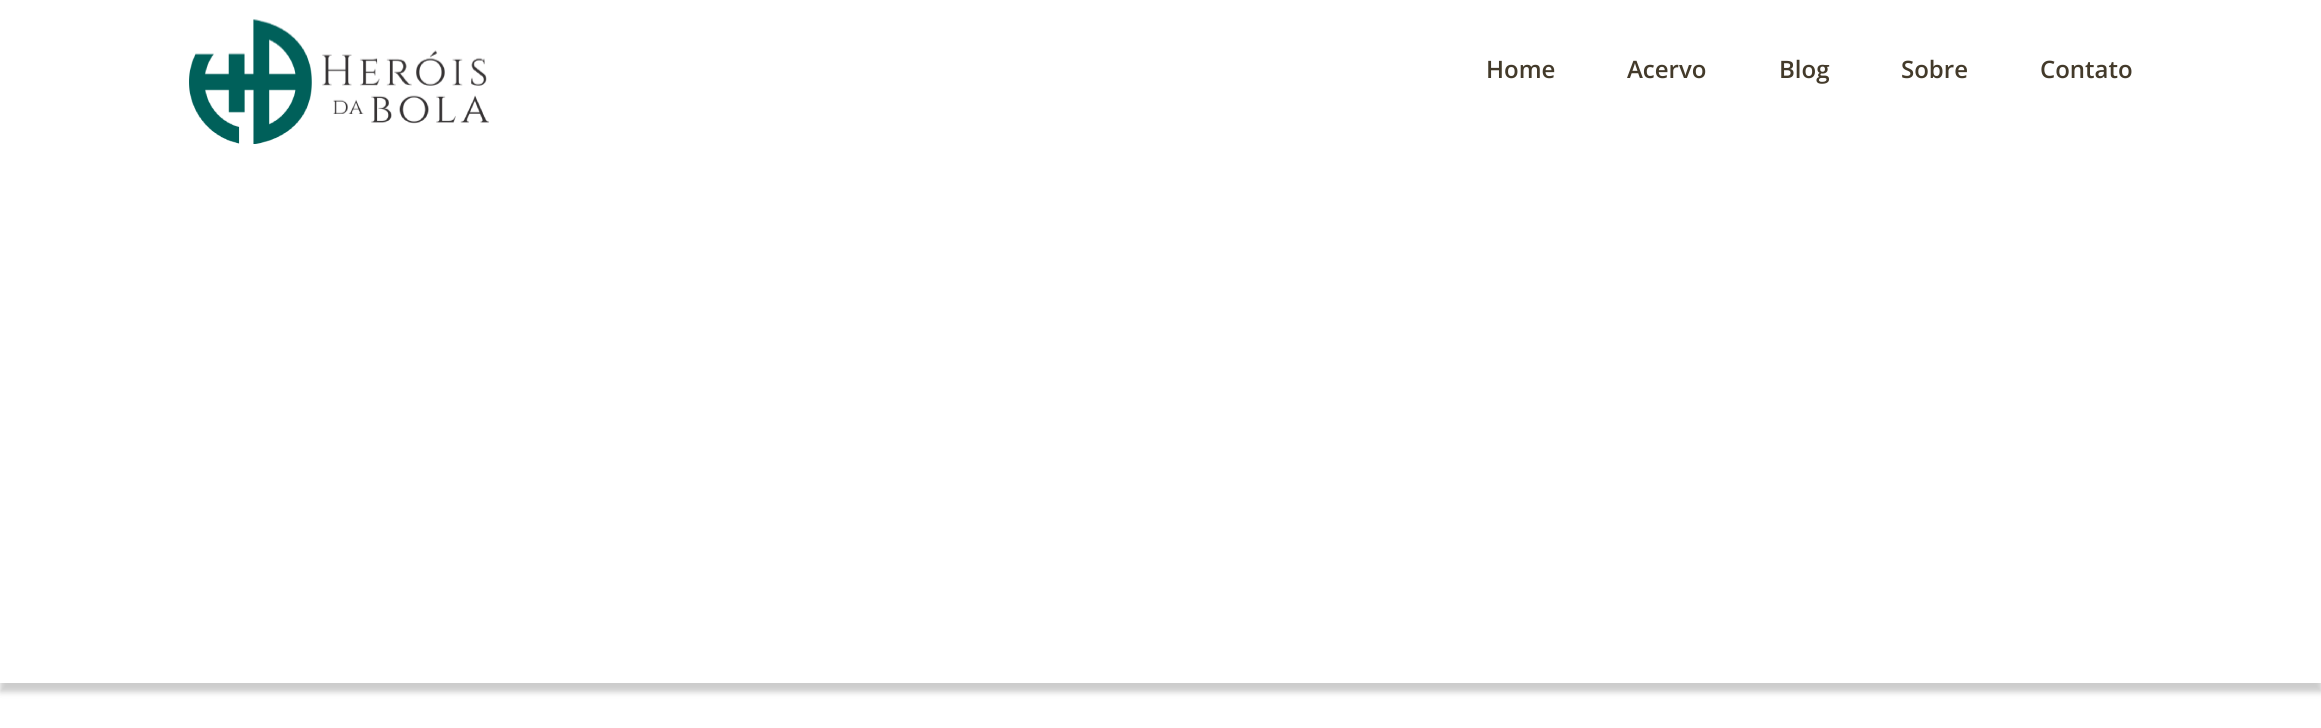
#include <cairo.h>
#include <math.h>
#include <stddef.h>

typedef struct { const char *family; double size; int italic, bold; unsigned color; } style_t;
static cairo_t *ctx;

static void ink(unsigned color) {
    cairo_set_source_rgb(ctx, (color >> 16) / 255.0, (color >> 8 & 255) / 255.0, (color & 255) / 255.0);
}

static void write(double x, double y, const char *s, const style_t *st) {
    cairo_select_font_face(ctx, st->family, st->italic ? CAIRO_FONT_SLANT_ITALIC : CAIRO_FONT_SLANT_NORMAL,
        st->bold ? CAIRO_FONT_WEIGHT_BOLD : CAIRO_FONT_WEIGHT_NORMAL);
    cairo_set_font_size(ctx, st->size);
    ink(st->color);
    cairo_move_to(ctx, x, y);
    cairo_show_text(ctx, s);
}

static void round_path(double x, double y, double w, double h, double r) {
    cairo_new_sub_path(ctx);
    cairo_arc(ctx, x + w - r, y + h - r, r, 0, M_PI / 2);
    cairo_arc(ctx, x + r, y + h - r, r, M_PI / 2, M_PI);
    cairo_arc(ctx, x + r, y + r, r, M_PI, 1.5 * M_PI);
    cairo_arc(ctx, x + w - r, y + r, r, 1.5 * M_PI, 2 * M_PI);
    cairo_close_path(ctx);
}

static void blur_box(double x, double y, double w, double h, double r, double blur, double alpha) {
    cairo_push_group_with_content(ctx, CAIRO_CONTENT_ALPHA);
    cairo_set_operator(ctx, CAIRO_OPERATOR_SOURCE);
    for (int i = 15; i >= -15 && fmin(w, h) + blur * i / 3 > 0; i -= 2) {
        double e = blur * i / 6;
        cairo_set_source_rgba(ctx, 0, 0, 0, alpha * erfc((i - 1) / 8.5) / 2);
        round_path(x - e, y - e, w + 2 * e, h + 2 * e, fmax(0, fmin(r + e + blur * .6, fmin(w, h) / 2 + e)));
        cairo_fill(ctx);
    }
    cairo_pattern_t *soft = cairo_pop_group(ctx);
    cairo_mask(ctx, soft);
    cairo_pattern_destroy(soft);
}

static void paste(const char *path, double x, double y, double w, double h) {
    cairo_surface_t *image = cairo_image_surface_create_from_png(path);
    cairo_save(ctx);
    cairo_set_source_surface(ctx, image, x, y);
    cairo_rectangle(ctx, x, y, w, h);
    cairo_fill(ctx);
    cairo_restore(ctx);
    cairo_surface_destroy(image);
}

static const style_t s1 = {"Open Sans SemiBold", 24, 0, 0, 0x433a2a};

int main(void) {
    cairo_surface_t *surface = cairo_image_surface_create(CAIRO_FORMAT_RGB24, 2321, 728);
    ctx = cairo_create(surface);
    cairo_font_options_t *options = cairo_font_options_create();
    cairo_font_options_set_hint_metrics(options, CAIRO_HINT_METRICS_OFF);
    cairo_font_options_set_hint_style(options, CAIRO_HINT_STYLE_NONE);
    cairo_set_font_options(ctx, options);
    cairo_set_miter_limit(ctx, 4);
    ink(0xffffff);
    cairo_paint(ctx);
    cairo_save(ctx);
    cairo_set_fill_rule(ctx, CAIRO_FILL_RULE_EVEN_ODD);
    cairo_new_path(ctx);
    cairo_move_to(ctx, 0, 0);
    cairo_line_to(ctx, 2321, 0);
    cairo_line_to(ctx, 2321, 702);
    cairo_line_to(ctx, 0, 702);
    cairo_close_path(ctx);
    cairo_move_to(ctx, 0, 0);
    cairo_line_to(ctx, 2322, 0);
    cairo_line_to(ctx, 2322, 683);
    cairo_line_to(ctx, 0, 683);
    cairo_close_path(ctx);
    cairo_clip(ctx);
    ink(0x000000);
    blur_box(0, 9, 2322, 683, 0, 3, 0.2);
    cairo_restore(ctx);
    paste("pic1.png", 189, 19, 300, 125);
    write(1486, 78, "Home", &s1);
    write(1627, 78, "Acervo", &s1);
    write(1779, 78, "Blog", &s1);
    write(1901, 78, "Sobre", &s1);
    write(2040, 78, "Contato", &s1);
    cairo_surface_write_to_png(surface, "screenshot.png");
    cairo_font_options_destroy(options);
    cairo_destroy(ctx);
    cairo_surface_destroy(surface);
    return 0;
}
